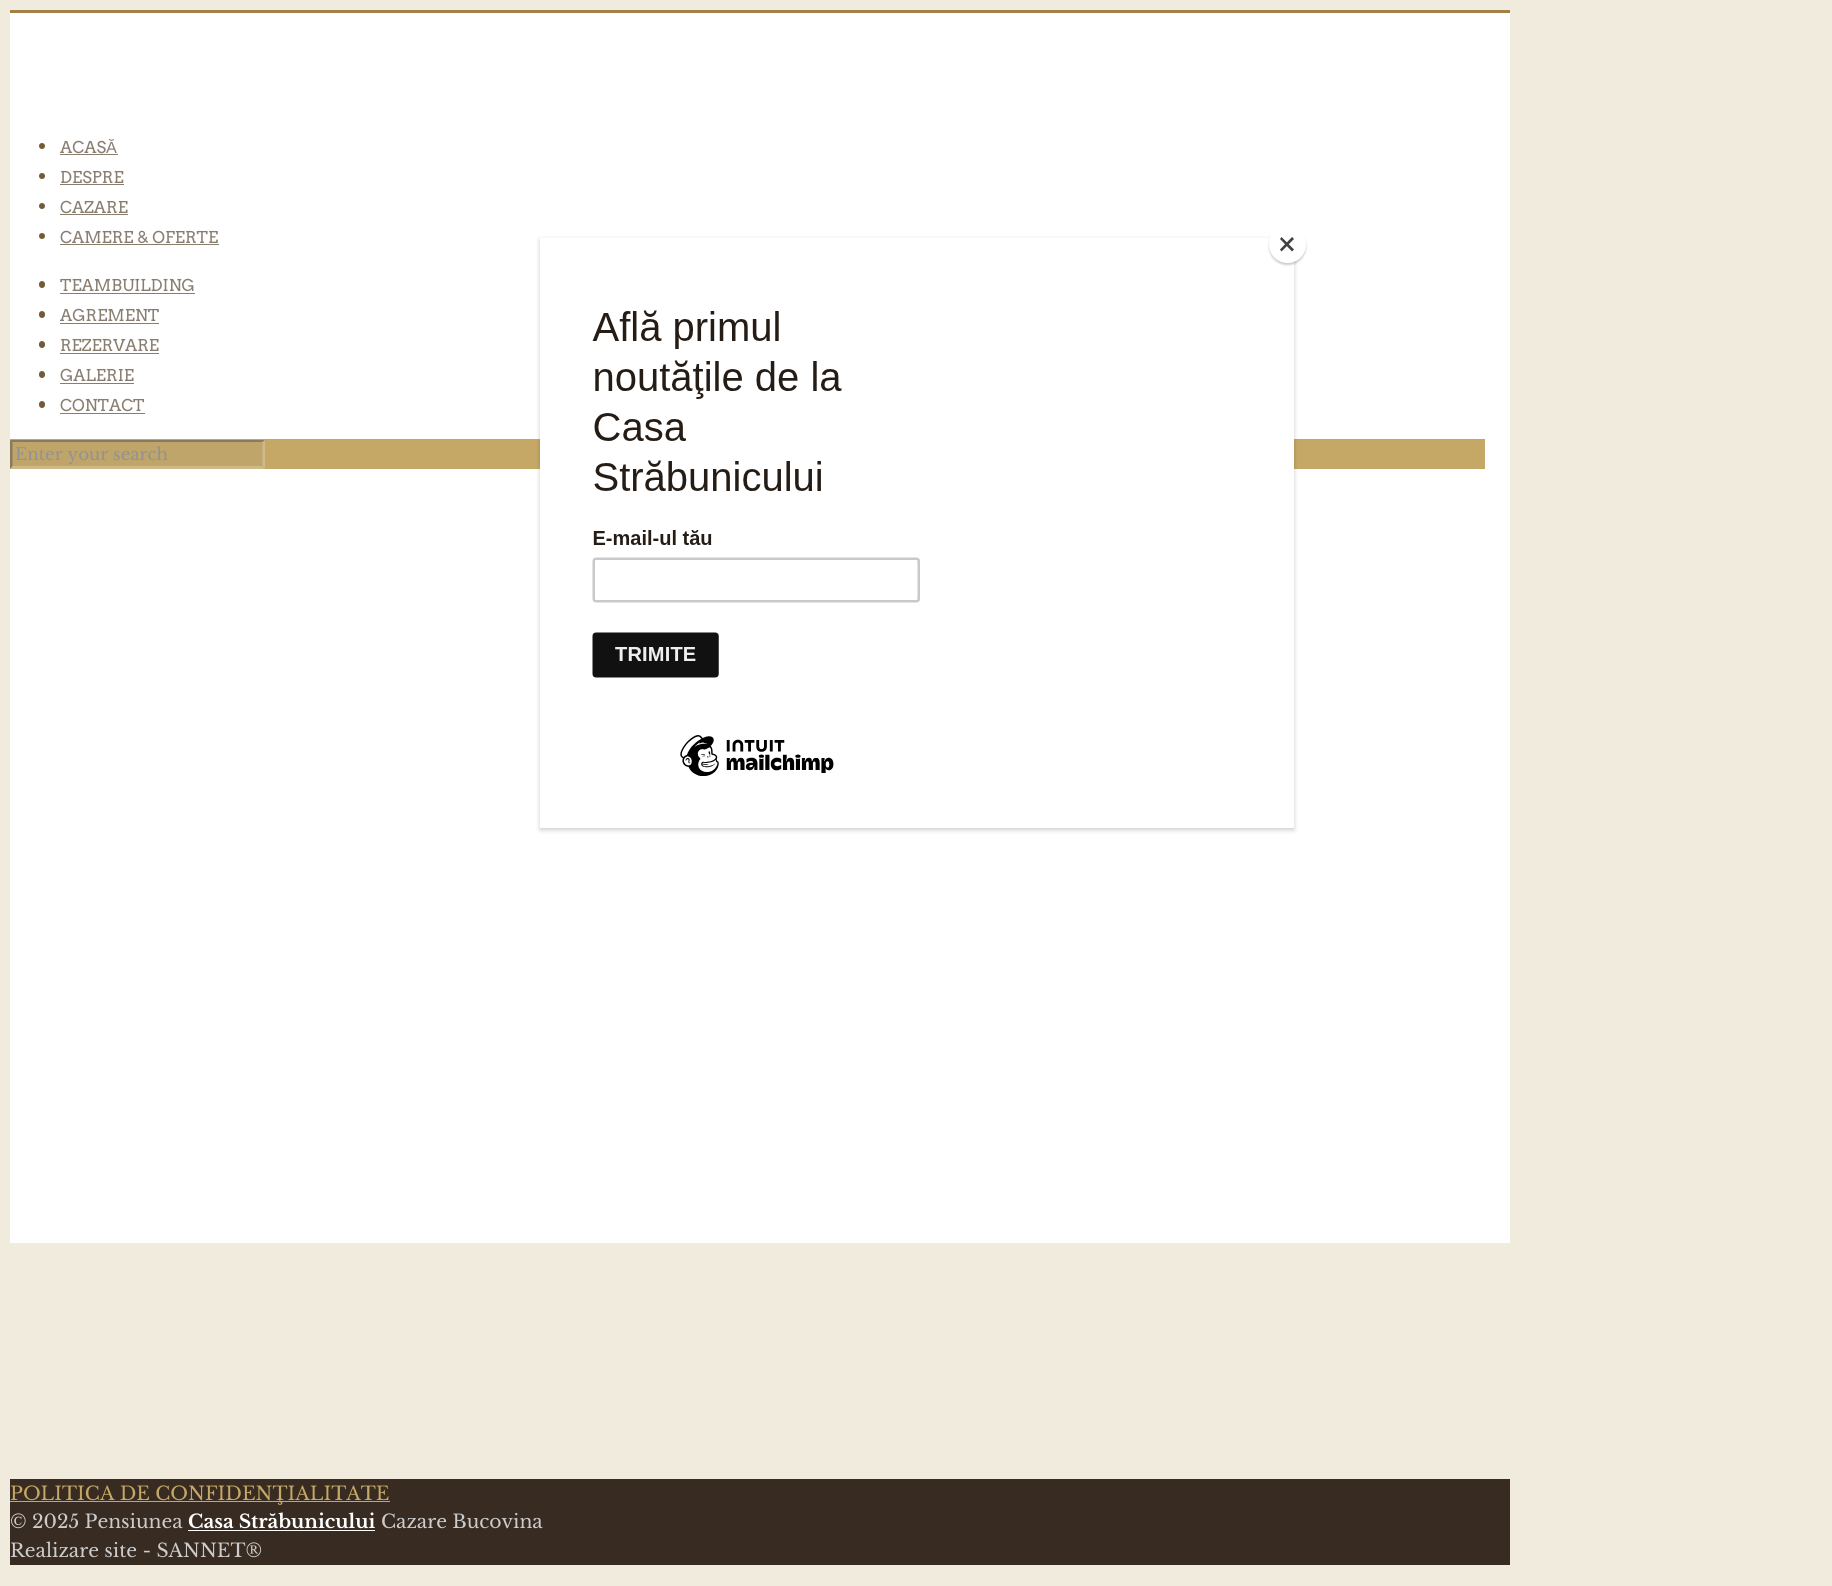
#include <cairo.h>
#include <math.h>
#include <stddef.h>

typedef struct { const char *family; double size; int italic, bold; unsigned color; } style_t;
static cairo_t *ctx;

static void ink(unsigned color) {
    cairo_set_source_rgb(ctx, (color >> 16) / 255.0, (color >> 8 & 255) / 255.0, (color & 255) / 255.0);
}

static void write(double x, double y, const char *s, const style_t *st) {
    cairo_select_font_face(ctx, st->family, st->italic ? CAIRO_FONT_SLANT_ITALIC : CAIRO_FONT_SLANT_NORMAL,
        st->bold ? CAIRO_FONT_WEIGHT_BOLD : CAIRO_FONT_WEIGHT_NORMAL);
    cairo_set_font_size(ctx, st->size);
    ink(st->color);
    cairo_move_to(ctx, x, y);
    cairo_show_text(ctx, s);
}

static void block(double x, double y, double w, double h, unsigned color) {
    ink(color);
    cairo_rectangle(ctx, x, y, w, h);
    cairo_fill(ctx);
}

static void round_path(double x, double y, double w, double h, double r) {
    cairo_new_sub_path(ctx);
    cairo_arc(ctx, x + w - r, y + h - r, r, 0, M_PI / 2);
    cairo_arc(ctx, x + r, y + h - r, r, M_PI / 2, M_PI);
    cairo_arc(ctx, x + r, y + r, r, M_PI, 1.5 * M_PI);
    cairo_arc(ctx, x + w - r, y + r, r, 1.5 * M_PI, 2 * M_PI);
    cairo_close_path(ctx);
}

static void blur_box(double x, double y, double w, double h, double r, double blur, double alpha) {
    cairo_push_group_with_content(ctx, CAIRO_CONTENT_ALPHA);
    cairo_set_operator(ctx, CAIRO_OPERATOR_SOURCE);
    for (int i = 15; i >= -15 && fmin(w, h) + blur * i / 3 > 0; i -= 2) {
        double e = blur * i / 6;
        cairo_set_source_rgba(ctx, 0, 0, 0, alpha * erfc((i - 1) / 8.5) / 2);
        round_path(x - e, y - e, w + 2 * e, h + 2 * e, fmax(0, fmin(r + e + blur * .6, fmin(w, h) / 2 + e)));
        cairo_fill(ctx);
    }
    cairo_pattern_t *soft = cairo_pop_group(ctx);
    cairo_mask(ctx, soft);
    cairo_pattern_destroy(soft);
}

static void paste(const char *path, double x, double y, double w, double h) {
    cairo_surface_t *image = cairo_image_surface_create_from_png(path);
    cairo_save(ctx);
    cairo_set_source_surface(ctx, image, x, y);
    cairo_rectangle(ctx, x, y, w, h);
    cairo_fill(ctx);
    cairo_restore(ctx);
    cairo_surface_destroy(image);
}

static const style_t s1 = {"Arvo", 16.25, 0, 0, 0x897d70};
static const style_t s2 = {"Liberation Sans", 16.25, 0, 0, 0x897d70};
static const style_t s3 = {"Libre Baskerville", 16.75, 0, 0, 0x929292};
static const style_t s4 = {"Libre Baskerville", 18.75, 0, 0, 0xc6a866};
static const style_t s5 = {"Libre Baskerville", 18.75, 0, 0, 0xcccccc};
static const style_t s6 = {"Libre Baskerville", 18.75, 0, 1, 0xffffff};

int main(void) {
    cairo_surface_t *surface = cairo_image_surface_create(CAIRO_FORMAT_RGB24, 1832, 1586);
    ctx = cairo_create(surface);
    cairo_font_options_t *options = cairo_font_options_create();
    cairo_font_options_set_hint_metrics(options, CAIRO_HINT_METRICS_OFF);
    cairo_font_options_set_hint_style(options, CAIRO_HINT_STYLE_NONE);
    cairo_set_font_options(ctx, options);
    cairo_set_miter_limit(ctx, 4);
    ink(0xf0ebdc);
    cairo_paint(ctx);
    block(10, 13, 1500, 1230, 0xffffff);
    block(10, 10, 1500, 3, 0xa28047);
    ink(0x725b38);
    cairo_arc(ctx, 42, 146, 3, 0, 2 * M_PI);
    cairo_fill(ctx);
    write(60, 153, "ACAS", &s1);
    block(60, 154, 58, 1, 0x897d70);
    write(106, 153, "Ă", &s2);
    ink(0x725b38);
    cairo_new_path(ctx);
    cairo_arc(ctx, 42, 176, 3, 0, 2 * M_PI);
    cairo_fill(ctx);
    write(60, 183, "DESPRE", &s1);
    block(60, 184, 64, 1, 0x897d70);
    ink(0x725b38);
    cairo_new_path(ctx);
    cairo_arc(ctx, 42, 206, 3, 0, 2 * M_PI);
    cairo_fill(ctx);
    write(60, 213, "CAZARE", &s1);
    block(60, 214, 68, 1, 0x897d70);
    ink(0x725b38);
    cairo_new_path(ctx);
    cairo_arc(ctx, 42, 236, 3, 0, 2 * M_PI);
    cairo_fill(ctx);
    write(60, 243, "CAMERE & OFERTE", &s1);
    block(60, 244, 159, 1, 0x897d70);
    ink(0x725b38);
    round_path(39, 281, 6, 7, 3);
    cairo_fill(ctx);
    write(60, 291, "TEAMBUILDING", &s1);
    block(60, 293, 135, 1, 0x897d70);
    ink(0x725b38);
    round_path(39, 311, 6, 7, 3);
    cairo_fill(ctx);
    write(60, 321, "AGREMENT", &s1);
    block(60, 323, 99, 1, 0x897d70);
    ink(0x725b38);
    round_path(39, 341, 6, 7, 3);
    cairo_fill(ctx);
    write(60, 351, "REZERVARE", &s1);
    block(60, 353, 99, 1, 0x897d70);
    ink(0x725b38);
    round_path(39, 371, 6, 7, 3);
    cairo_fill(ctx);
    write(60, 381, "GALERIE", &s1);
    block(60, 383, 74, 1, 0x897d70);
    ink(0x725b38);
    round_path(39, 401, 6, 7, 3);
    cairo_fill(ctx);
    write(60, 411, "CONTACT", &s1);
    block(60, 413, 85, 1, 0x897d70);
    block(10, 439, 1475, 30, 0xc6a866);
    block(10, 440, 255, 29, 0xbfa56a);
    ink(0x897b5b);
    cairo_new_path(ctx);
    cairo_move_to(ctx, 10, 440);
    cairo_line_to(ctx, 265, 440);
    cairo_line_to(ctx, 262, 442);
    cairo_line_to(ctx, 12, 442);
    cairo_close_path(ctx);
    cairo_fill(ctx);
    ink(0xceb989);
    cairo_new_path(ctx);
    cairo_move_to(ctx, 265, 440);
    cairo_line_to(ctx, 265, 469);
    cairo_line_to(ctx, 262.5, 466);
    cairo_line_to(ctx, 262.5, 442.5);
    cairo_close_path(ctx);
    cairo_fill(ctx);
    cairo_new_path(ctx);
    cairo_move_to(ctx, 265, 469);
    cairo_line_to(ctx, 10, 469);
    cairo_line_to(ctx, 12, 466);
    cairo_line_to(ctx, 262, 466);
    cairo_close_path(ctx);
    cairo_fill(ctx);
    ink(0x897b5b);
    cairo_new_path(ctx);
    cairo_move_to(ctx, 10, 469);
    cairo_line_to(ctx, 10, 440);
    cairo_line_to(ctx, 12.5, 442.5);
    cairo_line_to(ctx, 12.5, 466);
    cairo_close_path(ctx);
    cairo_fill(ctx);
    write(15, 460, "Enter your search", &s3);
    block(10, 1479, 1500, 86, 0x382b22);
    block(10, 1501, 380, 1, 0xc6a866);
    write(10, 1500, "POLITICA DE CONFIDENŢIALITATE", &s4);
    write(10, 1528, "© 2025 Pensiunea", &s5);
    write(188, 1528, "Casa Străbunicului", &s6);
    block(188, 1530, 187, 1, 0xffffff);
    write(381, 1528, "Cazare Bucovina", &s5);
    write(10, 1557, "Realizare site - SANNET®", &s5);
    cairo_save(ctx);
    cairo_set_fill_rule(ctx, CAIRO_FILL_RULE_EVEN_ODD);
    cairo_new_path(ctx);
    cairo_move_to(ctx, 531, 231);
    cairo_line_to(ctx, 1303, 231);
    cairo_line_to(ctx, 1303, 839);
    cairo_line_to(ctx, 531, 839);
    cairo_close_path(ctx);
    cairo_move_to(ctx, 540, 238);
    cairo_line_to(ctx, 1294, 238);
    cairo_line_to(ctx, 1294, 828);
    cairo_line_to(ctx, 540, 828);
    cairo_close_path(ctx);
    cairo_clip(ctx);
    ink(0x000000);
    blur_box(540, 240, 754, 590, 0, 2.5, 0.2);
    cairo_restore(ctx);
    paste("pic1.png", 540, 240, 754, 588);
    ink(0x000000);
    blur_box(1269, 228, 37, 37, 18.5, 1, 0.2);
    ink(0xffffff);
    round_path(1269, 225, 37, 38, 18.5);
    cairo_fill(ctx);
    ink(0x414141);
    cairo_new_path(ctx);
    cairo_move_to(ctx, 1292, 237);
    cairo_line_to(ctx, 1294, 239);
    cairo_line_to(ctx, 1281.5, 251.5);
    cairo_line_to(ctx, 1280, 249.5);
    cairo_close_path(ctx);
    cairo_fill(ctx);
    cairo_new_path(ctx);
    cairo_move_to(ctx, 1280, 239);
    cairo_line_to(ctx, 1281.5, 237);
    cairo_line_to(ctx, 1294, 249.5);
    cairo_line_to(ctx, 1292, 251.5);
    cairo_close_path(ctx);
    cairo_fill(ctx);
    cairo_surface_write_to_png(surface, "screenshot.png");
    cairo_font_options_destroy(options);
    cairo_destroy(ctx);
    cairo_surface_destroy(surface);
    return 0;
}
